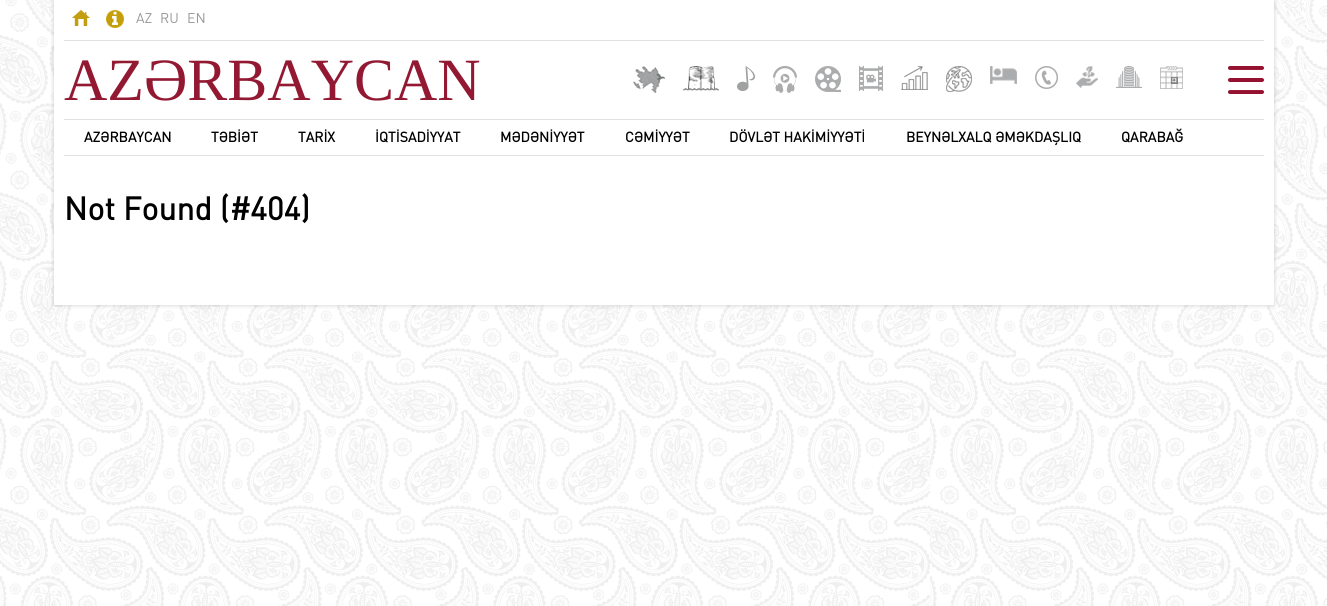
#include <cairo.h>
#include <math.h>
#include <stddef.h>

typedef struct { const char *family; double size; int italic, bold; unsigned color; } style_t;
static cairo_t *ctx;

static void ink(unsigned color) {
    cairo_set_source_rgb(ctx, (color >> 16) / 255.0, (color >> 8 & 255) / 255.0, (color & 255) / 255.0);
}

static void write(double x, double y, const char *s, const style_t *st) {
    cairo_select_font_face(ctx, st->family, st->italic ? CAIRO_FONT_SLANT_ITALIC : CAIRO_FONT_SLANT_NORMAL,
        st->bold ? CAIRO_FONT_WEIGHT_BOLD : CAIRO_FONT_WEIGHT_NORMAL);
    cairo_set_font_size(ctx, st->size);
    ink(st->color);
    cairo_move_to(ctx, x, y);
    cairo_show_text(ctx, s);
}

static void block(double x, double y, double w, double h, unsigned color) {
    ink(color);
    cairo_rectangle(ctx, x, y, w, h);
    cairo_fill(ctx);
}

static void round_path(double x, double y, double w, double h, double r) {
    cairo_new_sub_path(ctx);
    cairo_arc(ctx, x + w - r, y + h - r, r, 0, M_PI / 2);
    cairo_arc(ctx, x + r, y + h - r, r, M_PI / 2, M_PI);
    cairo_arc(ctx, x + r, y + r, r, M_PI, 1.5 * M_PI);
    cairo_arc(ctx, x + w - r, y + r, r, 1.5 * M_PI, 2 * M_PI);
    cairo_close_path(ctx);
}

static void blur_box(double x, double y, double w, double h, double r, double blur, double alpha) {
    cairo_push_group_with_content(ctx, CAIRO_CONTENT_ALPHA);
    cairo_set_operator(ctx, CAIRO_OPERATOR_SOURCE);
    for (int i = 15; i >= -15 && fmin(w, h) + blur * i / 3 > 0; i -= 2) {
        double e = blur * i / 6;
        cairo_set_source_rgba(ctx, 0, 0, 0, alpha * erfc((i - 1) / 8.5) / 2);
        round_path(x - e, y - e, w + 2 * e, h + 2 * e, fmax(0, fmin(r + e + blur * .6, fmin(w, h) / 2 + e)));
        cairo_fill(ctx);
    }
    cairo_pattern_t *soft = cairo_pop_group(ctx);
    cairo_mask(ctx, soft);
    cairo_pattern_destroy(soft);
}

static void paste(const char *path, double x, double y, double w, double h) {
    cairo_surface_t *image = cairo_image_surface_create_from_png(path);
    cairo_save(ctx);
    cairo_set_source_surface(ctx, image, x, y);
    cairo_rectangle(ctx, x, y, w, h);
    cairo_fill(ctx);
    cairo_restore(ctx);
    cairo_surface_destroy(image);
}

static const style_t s1 = {"DIN", 14, 0, 0, 0x999999};
static const style_t s2 = {"Liberation Serif", 60, 0, 0, 0x931933};
static const style_t s3 = {"DIN", 14, 0, 1, 0x000000};
static const style_t s4 = {"DIN", 32, 0, 1, 0x000000};

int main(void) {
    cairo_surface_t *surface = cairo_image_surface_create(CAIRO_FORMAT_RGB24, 1327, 606);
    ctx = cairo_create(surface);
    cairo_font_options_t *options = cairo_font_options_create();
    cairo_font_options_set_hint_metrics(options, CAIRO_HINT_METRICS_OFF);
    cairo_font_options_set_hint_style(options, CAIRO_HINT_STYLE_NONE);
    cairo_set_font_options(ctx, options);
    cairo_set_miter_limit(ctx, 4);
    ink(0xffffff);
    cairo_paint(ctx);
    paste("pic1.png", 0, 0, 1327, 606);
    ink(0x000000);
    blur_box(54, 0, 1220, 305, 0, 2.5, 0.2);
    block(54, 0, 1220, 305, 0xffffff);
    block(64, 40, 1200, 1, 0xe1e1e1);
    paste("pic2.png", 72, 10, 18, 16);
    paste("pic3.png", 106, 10, 18, 18);
    write(136, 23, "AZ", &s1);
    write(160, 23, "RU", &s1);
    write(187, 23, "EN", &s1);
    write(64, 100, "AZƏRBAYCAN", &s2);
    paste("pic4.png", 633, 66, 32, 27);
    paste("pic5.png", 683, 66, 36, 25);
    paste("pic6.png", 737, 66, 18, 25);
    paste("pic7.png", 773, 66, 24, 27);
    paste("pic8.png", 815, 66, 26, 26);
    paste("pic9.png", 859, 66, 24, 25);
    paste("pic10.png", 901, 66, 27, 24);
    paste("pic11.png", 946, 66, 26, 26);
    paste("pic12.png", 990, 66, 27, 18);
    paste("pic13.png", 1035, 66, 23, 23);
    paste("pic14.png", 1076, 66, 22, 22);
    paste("pic15.png", 1116, 66, 26, 22);
    paste("pic16.png", 1160, 66, 23, 23);
    paste("pic17.png", 1228, 66, 36, 28);
    block(64, 119, 1200, 1, 0xe1e1e1);
    block(64, 155, 1200, 1, 0xe1e1e1);
    write(84, 142, "AZƏRBAYCAN", &s3);
    write(211, 142, "TƏBİƏT", &s3);
    write(298, 142, "TARİX", &s3);
    write(375, 142, "İQTİSADİYYAT", &s3);
    write(500, 142, "MƏDƏNİYYƏT", &s3);
    write(625, 142, "CƏMİYYƏT", &s3);
    write(729, 142, "DÖVLƏT HAKİMİYYƏTİ", &s3);
    write(906, 142, "BEYNƏLXALQ ƏMƏKDAŞLIQ", &s3);
    write(1121, 142, "QARABAĞ", &s3);
    write(64, 220, "Not Found (#404)", &s4);
    cairo_surface_write_to_png(surface, "screenshot.png");
    cairo_font_options_destroy(options);
    cairo_destroy(ctx);
    cairo_surface_destroy(surface);
    return 0;
}
